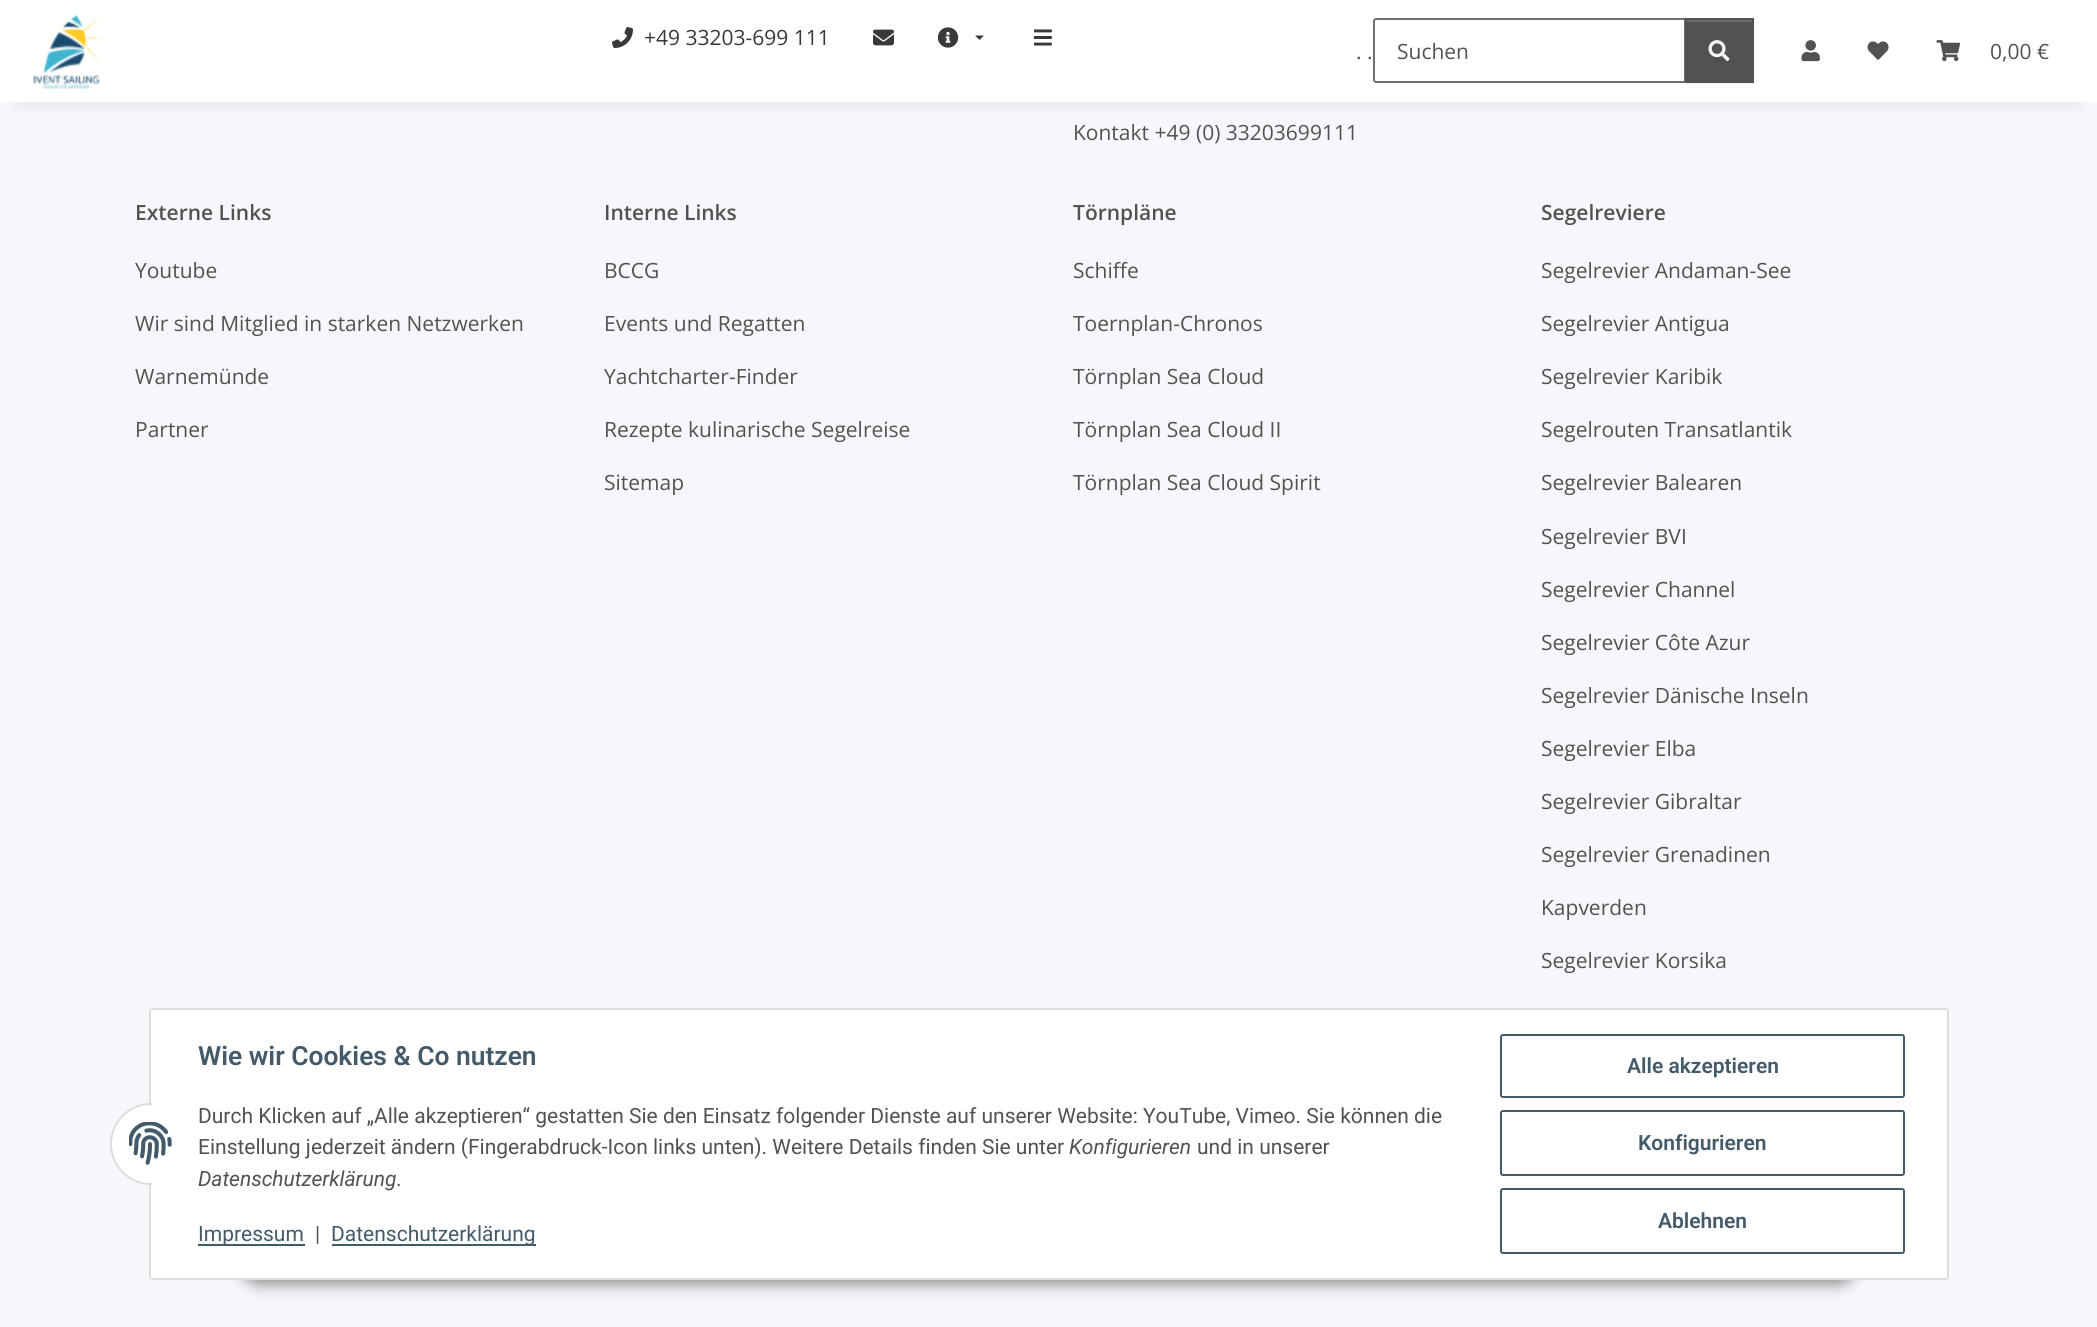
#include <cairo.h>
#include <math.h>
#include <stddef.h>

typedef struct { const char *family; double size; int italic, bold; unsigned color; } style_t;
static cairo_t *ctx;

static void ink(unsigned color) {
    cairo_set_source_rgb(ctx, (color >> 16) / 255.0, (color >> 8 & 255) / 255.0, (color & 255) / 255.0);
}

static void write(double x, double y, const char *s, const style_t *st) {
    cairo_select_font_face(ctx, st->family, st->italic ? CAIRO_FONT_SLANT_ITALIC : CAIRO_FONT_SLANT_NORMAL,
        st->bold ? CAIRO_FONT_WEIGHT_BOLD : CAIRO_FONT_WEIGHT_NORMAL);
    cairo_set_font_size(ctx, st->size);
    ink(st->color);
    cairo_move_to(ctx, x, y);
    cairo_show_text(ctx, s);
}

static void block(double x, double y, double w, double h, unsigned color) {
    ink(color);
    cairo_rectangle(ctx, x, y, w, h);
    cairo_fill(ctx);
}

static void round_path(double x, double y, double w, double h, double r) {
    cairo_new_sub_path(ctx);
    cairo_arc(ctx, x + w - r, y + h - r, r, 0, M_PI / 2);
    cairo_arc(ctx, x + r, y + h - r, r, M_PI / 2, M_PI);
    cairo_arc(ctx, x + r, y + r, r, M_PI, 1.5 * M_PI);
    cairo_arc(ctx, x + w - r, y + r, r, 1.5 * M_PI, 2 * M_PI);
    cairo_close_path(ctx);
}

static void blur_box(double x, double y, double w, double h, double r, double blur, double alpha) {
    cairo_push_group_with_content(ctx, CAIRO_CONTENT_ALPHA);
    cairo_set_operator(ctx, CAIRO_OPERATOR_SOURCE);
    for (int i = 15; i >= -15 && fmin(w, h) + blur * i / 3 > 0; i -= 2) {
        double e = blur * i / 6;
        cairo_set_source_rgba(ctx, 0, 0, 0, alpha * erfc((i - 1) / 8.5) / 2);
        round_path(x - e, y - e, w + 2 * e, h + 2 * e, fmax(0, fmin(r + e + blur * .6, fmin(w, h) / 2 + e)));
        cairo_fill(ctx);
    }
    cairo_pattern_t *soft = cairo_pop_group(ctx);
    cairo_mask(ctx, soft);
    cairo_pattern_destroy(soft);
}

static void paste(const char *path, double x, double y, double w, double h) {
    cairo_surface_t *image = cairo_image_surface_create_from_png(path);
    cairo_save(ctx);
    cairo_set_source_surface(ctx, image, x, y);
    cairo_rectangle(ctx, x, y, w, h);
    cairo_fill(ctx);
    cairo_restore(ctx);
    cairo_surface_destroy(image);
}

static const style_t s1 = {"Open Sans", 21, 0, 0, 0x393939};
static const style_t s2 = {"Open Sans", 21, 0, 0, 0x525252};
static const style_t s3 = {"Open Sans SemiBold", 21, 0, 0, 0x525252};
static const style_t s4 = {"Roboto SemiBold", 26.4, 0, 0, 0x435a6b};
static const style_t s5 = {"Roboto", 21, 0, 0, 0x525252};
static const style_t s6 = {"Roboto", 21, 1, 0, 0x525252};
static const style_t s7 = {"Roboto", 21, 0, 0, 0x435a6b};
static const style_t s8 = {"Roboto SemiBold", 21, 0, 0, 0x435a6b};

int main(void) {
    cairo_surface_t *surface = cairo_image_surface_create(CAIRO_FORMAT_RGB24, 2097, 1327);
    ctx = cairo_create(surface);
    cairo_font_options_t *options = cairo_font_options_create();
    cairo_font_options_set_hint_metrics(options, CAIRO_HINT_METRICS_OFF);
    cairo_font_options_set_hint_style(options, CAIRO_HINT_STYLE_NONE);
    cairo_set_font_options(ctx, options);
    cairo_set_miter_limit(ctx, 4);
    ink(0xf5f7fa);
    cairo_paint(ctx);
    ink(0x000000);
    blur_box(18, 42, 2061, 66, 0, 7, 0.06);
    block(0, 0, 2097, 102, 0xffffff);
    paste("pic1.png", 33, 14, 72, 75);
    paste("pic2.png", 612, 27, 21, 21);
    write(644, 45, "+49 33203-699 111", &s1);
    paste("pic3.png", 873, 29, 21, 17);
    paste("pic4.png", 938, 27, 21, 21);
    cairo_new_path(ctx);
    cairo_move_to(ctx, 975, 35.5);
    cairo_line_to(ctx, 984, 35.5);
    cairo_line_to(ctx, 979.5, 40);
    cairo_close_path(ctx);
    cairo_fill(ctx);
    paste("pic5.png", 1034, 29, 18, 17);
    write(1356, 59, ". .", &s2);
    cairo_new_path(ctx);
    cairo_move_to(ctx, 1376, 19);
    cairo_line_to(ctx, 1685, 19);
    cairo_line_to(ctx, 1685, 82);
    cairo_line_to(ctx, 1376, 82);
    cairo_curve_to(ctx, 1375, 82, 1374, 81, 1374, 80);
    cairo_line_to(ctx, 1374, 21);
    cairo_curve_to(ctx, 1374, 20, 1375, 19, 1376, 19);
    cairo_close_path(ctx);
    ink(0x707070);
    cairo_stroke(ctx);
    write(1397, 59, "Suchen", &s2);
    ink(0x000000);
    blur_box(1685, 20, 69, 64, 0, 1, 0.07);
    block(1687, 22, 65, 59, 0x525252);
    block(1686, 20, 66, 2, 0x6c6c6c);
    cairo_rectangle(ctx, 1686, 19, 67, 63);
    ink(0x525252);
    cairo_stroke(ctx);
    paste("pic6.png", 1708, 40, 22, 22);
    paste("pic7.png", 1801, 40, 19, 22);
    paste("pic8.png", 1867, 41, 22, 19);
    paste("pic9.png", 1936, 40, 25, 22);
    write(1990, 59, "0,00 €", &s2);
    write(1073, 140, "Kontakt +49 (0) 33203699111", &s2);
    write(135, 220, "Externe Links", &s3);
    write(135, 278, "Youtube", &s2);
    write(135, 331, "Wir sind Mitglied in starken Netzwerken", &s2);
    write(135, 384, "Warnemünde", &s2);
    write(135, 437, "Partner", &s2);
    write(604, 220, "Interne Links", &s3);
    write(604, 278, "BCCG", &s2);
    write(604, 331, "Events und Regatten", &s2);
    write(604, 384, "Yachtcharter-Finder", &s2);
    write(604, 437, "Rezepte kulinarische Segelreise", &s2);
    write(604, 490, "Sitemap", &s2);
    write(1073, 220, "Törnpläne", &s3);
    write(1073, 278, "Schiffe", &s2);
    write(1073, 331, "Toernplan-Chronos", &s2);
    write(1073, 384, "Törnplan Sea Cloud", &s2);
    write(1073, 437, "Törnplan Sea Cloud II", &s2);
    write(1073, 490, "Törnplan Sea Cloud Spirit", &s2);
    write(1541, 220, "Segelreviere", &s3);
    write(1541, 278, "Segelrevier Andaman-See", &s2);
    write(1541, 331, "Segelrevier Antigua", &s2);
    write(1541, 384, "Segelrevier Karibik", &s2);
    write(1541, 437, "Segelrouten Transatlantik", &s2);
    write(1541, 490, "Segelrevier Balearen", &s2);
    write(1541, 544, "Segelrevier BVI", &s2);
    write(1541, 597, "Segelrevier Channel", &s2);
    write(1541, 650, "Segelrevier Côte Azur", &s2);
    write(1541, 703, "Segelrevier Dänische Inseln", &s2);
    write(1541, 756, "Segelrevier Elba", &s2);
    write(1541, 809, "Segelrevier Gibraltar", &s2);
    write(1541, 862, "Segelrevier Grenadinen", &s2);
    write(1541, 915, "Kapverden", &s2);
    write(1541, 968, "Segelrevier Korsika", &s2);
    ink(0x000000);
    blur_box(240, 1236, 1617, 48, 24, 7.5, 0.45);
    ink(0xffffff);
    round_path(150, 1009, 1798, 270, 2);
    cairo_fill_preserve(ctx);
    ink(0xdddddd);
    cairo_stroke(ctx);
    ink(0xffffff);
    cairo_arc(ctx, 151, 1144, 40, 0, 2 * M_PI);
    cairo_fill_preserve(ctx);
    ink(0xdddddd);
    cairo_stroke(ctx);
    block(152, 1103, 40, 82, 0xffffff);
    paste("pic10.png", 129, 1122, 43, 43);
    write(198, 1065, "Wie wir Cookies & Co nutzen", &s4);
    write(198, 1123, "Durch Klicken auf „Alle akzeptieren“ gestatten Sie den Einsatz folgender Dienste auf unserer Website: YouTube, Vimeo. Sie können die", &s5);
    write(198, 1154, "Einstellung jederzeit ändern (Fingerabdruck-Icon links unten). Weitere Details finden Sie unter", &s5);
    write(1069, 1154, "Konfigurieren", &s6);
    write(1197, 1154, "und in unserer", &s5);
    write(198, 1186, "Datenschutzerklärung", &s6);
    write(396, 1186, ".", &s5);
    block(198, 1244, 107, 2, 0x435a6b);
    write(198, 1241, "Impressum", &s7);
    write(315, 1241, "|", &s5);
    block(332, 1244, 204, 2, 0x435a6b);
    write(331, 1241, "Datenschutzerklärung", &s7);
    round_path(1501, 1035, 403, 62, 2);
    cairo_stroke(ctx);
    write(1627, 1073, "Alle akzeptieren", &s8);
    round_path(1501, 1111, 403, 64, 2);
    cairo_stroke(ctx);
    write(1638, 1150, "Konfigurieren", &s8);
    round_path(1501, 1189, 403, 64, 2);
    cairo_stroke(ctx);
    write(1658, 1228, "Ablehnen", &s8);
    cairo_surface_write_to_png(surface, "screenshot.png");
    cairo_font_options_destroy(options);
    cairo_destroy(ctx);
    cairo_surface_destroy(surface);
    return 0;
}
